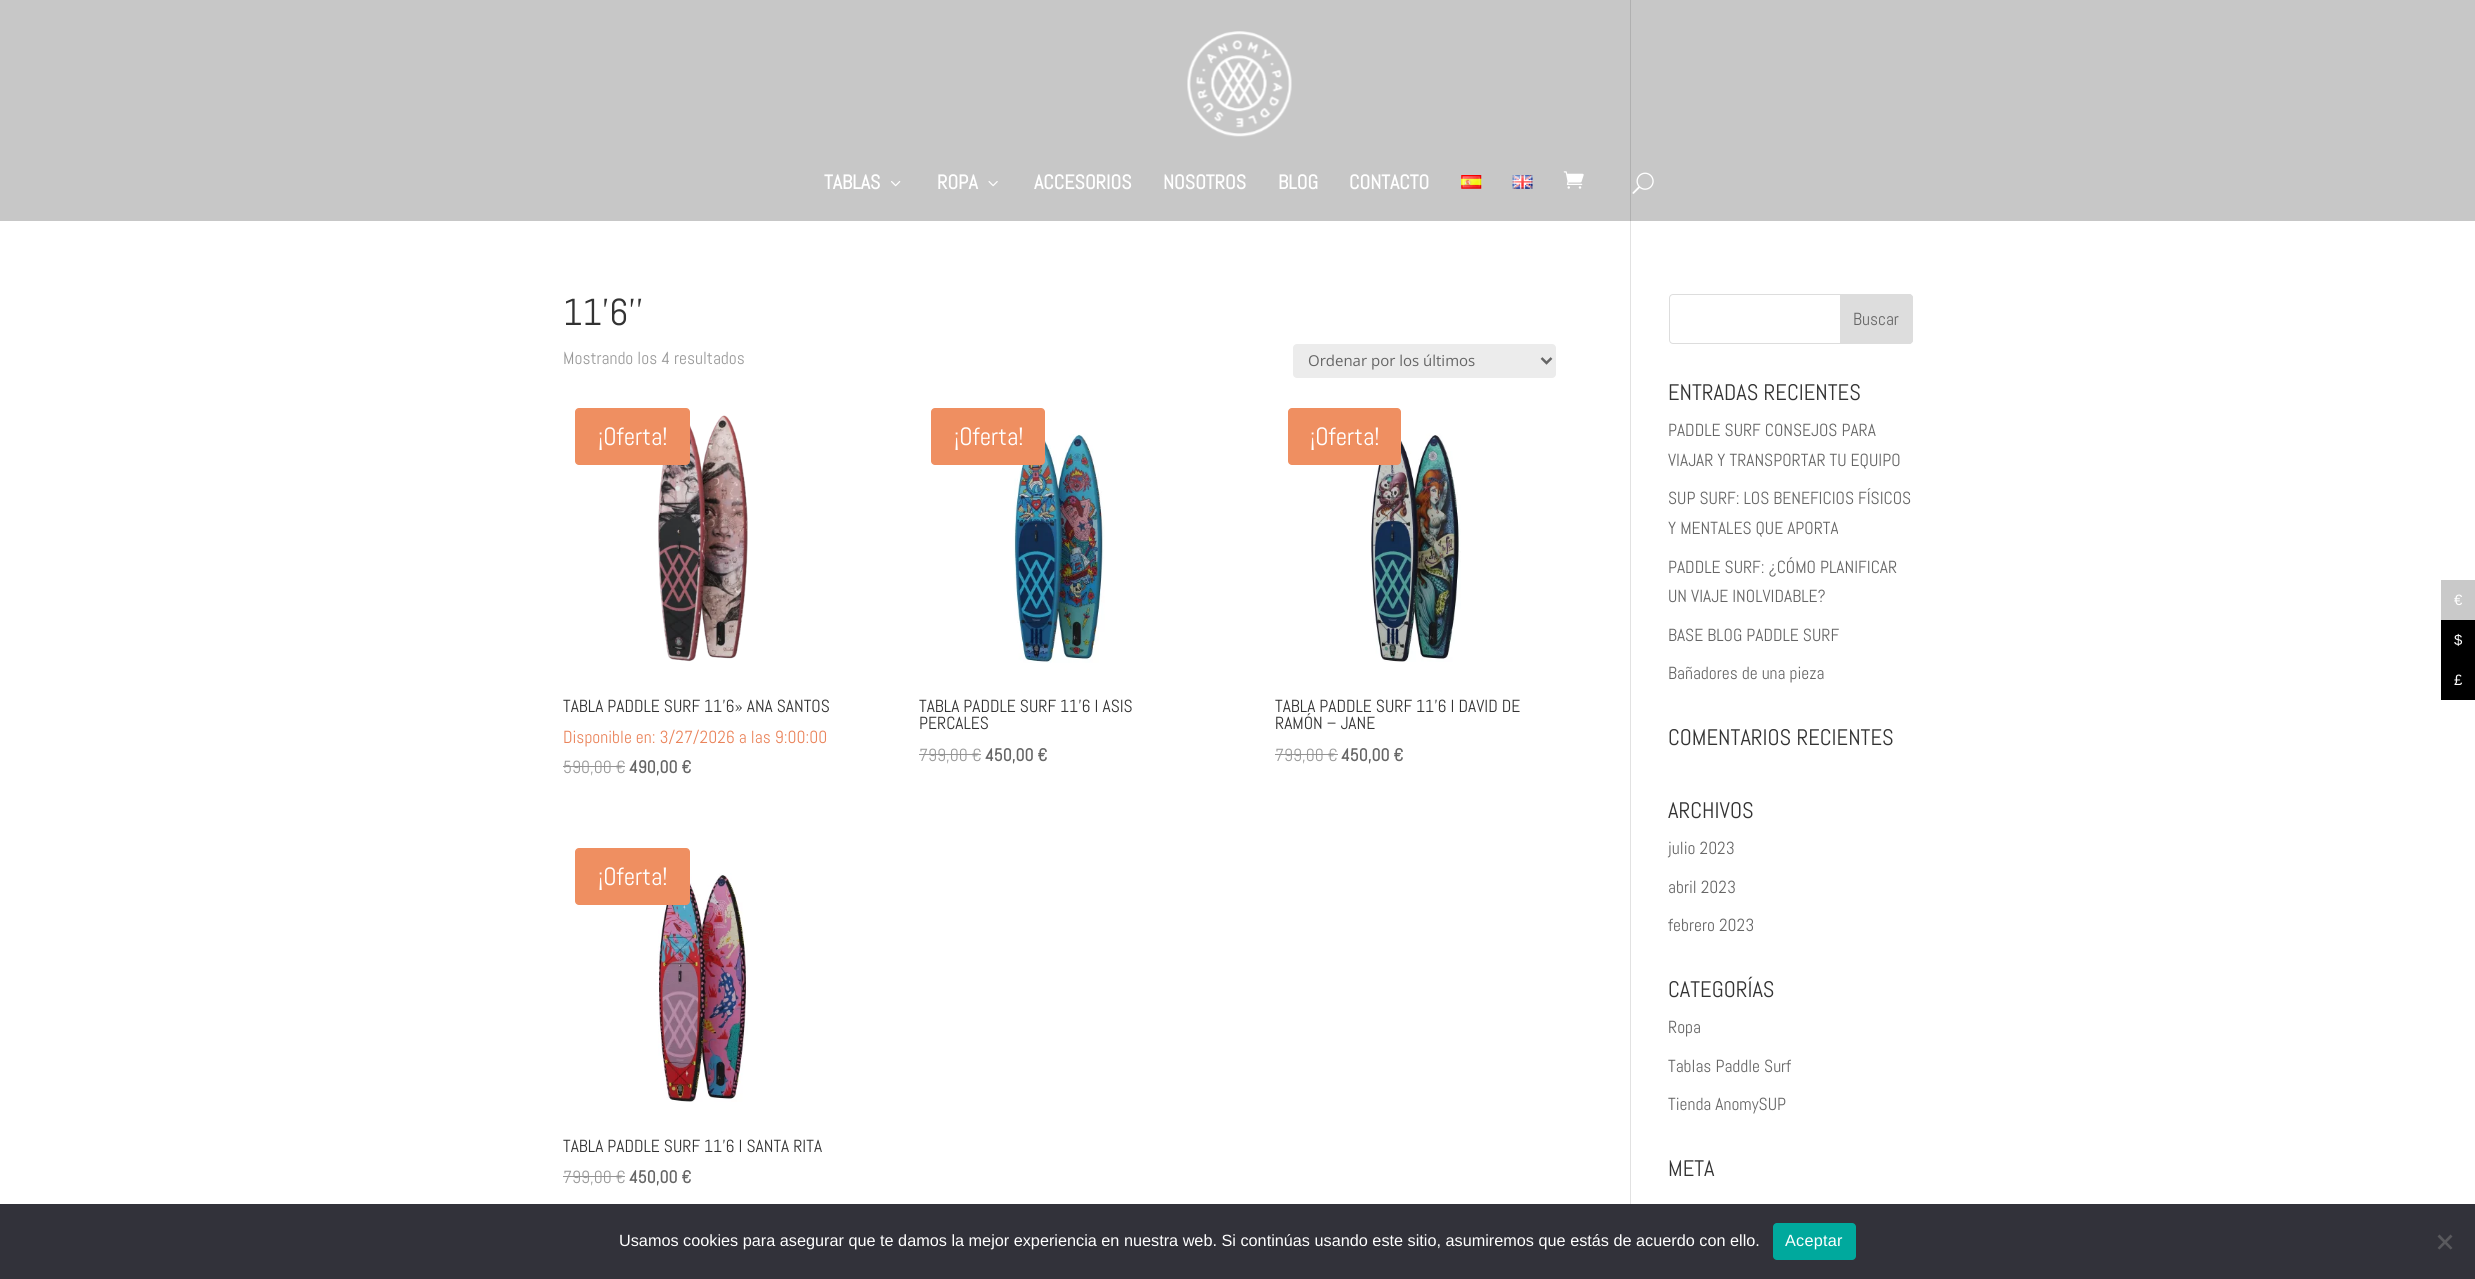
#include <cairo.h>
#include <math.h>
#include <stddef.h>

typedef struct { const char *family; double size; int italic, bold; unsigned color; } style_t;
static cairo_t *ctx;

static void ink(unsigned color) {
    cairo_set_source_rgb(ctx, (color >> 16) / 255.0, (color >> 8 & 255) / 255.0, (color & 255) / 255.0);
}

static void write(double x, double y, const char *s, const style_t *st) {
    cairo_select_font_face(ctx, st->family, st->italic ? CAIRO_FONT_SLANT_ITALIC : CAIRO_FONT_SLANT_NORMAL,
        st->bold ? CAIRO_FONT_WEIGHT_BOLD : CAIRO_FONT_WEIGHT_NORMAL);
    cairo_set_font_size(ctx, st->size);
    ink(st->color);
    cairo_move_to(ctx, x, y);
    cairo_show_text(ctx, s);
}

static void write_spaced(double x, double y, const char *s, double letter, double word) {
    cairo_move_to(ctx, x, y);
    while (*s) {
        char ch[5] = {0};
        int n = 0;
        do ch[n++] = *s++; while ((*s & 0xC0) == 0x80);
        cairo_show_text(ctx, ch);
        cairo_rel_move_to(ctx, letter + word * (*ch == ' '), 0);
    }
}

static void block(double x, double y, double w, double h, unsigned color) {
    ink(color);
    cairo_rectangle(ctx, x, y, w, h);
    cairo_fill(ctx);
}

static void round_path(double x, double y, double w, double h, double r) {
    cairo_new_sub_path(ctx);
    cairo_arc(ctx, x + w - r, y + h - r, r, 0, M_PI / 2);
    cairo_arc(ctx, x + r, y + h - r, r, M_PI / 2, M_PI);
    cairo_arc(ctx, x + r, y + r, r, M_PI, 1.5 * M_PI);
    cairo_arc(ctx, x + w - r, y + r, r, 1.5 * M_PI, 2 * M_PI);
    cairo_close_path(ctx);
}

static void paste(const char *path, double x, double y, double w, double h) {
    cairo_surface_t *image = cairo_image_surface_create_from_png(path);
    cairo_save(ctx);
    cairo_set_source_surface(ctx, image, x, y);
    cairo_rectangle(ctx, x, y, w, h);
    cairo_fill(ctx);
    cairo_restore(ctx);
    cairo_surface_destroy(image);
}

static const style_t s1 = {"Abel", 20, 0, 1, 0xffffff};
static const style_t s2 = {"Abel", 37.5, 0, 0, 0x333333};
static const style_t s3 = {"Abel", 17.5, 0, 0, 0x999999};
static const style_t s4 = {"Open Sans", 15, 0, 0, 0x666666};
static const style_t s5 = {"Abel", 25, 0, 0, 0xffffff};
static const style_t s6 = {"Abel", 17.5, 0, 0, 0x333333};
static const style_t s7 = {"Abel", 17.5, 0, 0, 0xea845b};
static const style_t s8 = {"Abel", 17.5, 0, 1, 0x666666};
static const style_t s9 = {"Abel", 17.5, 0, 0, 0x666666};
static const style_t s10 = {"Abel", 22.5, 0, 0, 0x333333};
static const style_t s11 = {"Liberation Sans", 15, 0, 0, 0xffffff};
static const style_t s12 = {"Liberation Sans", 16.25, 0, 0, 0xffffff};

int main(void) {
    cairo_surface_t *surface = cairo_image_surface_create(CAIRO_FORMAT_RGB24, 2475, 1279);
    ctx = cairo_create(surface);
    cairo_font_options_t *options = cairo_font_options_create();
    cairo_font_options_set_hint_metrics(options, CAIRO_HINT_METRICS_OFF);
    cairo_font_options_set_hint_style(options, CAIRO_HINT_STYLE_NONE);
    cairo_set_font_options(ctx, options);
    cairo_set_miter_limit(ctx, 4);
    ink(0xffffff);
    cairo_paint(ctx);
    block(0, 0, 2475, 221, 0xc7c7c7);
    paste("pic1.png", 1187, 31, 105, 106);
    write(824, 189, "TABLAS", &s1);
    paste("pic2.png", 891, 181, 10, 6);
    write(937, 189, "ROPA", &s1);
    paste("pic3.png", 988, 181, 10, 6);
    write(1034, 189, "ACCESORIOS", &s1);
    write(1163, 189, "NOSOTROS", &s1);
    write(1278, 189, "BLOG", &s1);
    write(1349, 189, "CONTACTO", &s1);
    paste("pic4.png", 1461, 175, 21, 14);
    paste("pic5.png", 1512, 175, 21, 14);
    paste("pic6.png", 1563, 171, 21, 18);
    paste("pic7.png", 1632, 172, 22, 22);
    block(1630, 221, 1, 983, 0xe2e2e2);
    block(1630, 0, 1, 221, 0xb0b0b0);
    write(563, 325, "11'6''", &s2);
    write(563, 364, "Mostrando los 4 resultados", &s3);
    ink(0xececec);
    round_path(1293, 344, 263, 34, 4);
    cairo_fill(ctx);
    cairo_new_path(ctx);
    cairo_move_to(ctx, 1541.5, 358);
    cairo_line_to(ctx, 1546.5, 363);
    cairo_line_to(ctx, 1551.5, 358);
    ink(0x666666);
    cairo_set_line_width(ctx, 2.5);
    cairo_stroke(ctx);
    write(1308, 366, "Ordenar por los últimos", &s4);
    paste("pic8.png", 658, 415, 90, 247);
    ink(0xef8f61);
    round_path(575, 408, 115, 57, 4);
    cairo_fill(ctx);
    write(598, 445, "¡Oferta!", &s5);
    write(563, 712, "TABLA PADDLE SURF 11’6» ANA SANTOS", &s6);
    write(563, 743, "Disponible en: 3/27/2026 a las 9:00:00", &s7);
    write(563, 773, "590,00 €", &s3);
    block(563, 766, 62, 1, 0x949494);
    write(629, 773, "490,00 €", &s8);
    paste("pic9.png", 1014, 429, 91, 234);
    ink(0xef8f61);
    round_path(931, 408, 114, 57, 4);
    cairo_fill(ctx);
    write(954, 445, "¡Oferta!", &s5);
    write(919, 712, "TABLA PADDLE SURF 11’6 I ASIS", &s6);
    write(919, 729, "PERCALES", &s6);
    write(919, 761, "799,00 €", &s3);
    block(919, 754, 62, 1, 0x949494);
    write(985, 761, "450,00 €", &s8);
    paste("pic10.png", 1371, 431, 90, 231);
    ink(0xef8f61);
    round_path(1288, 408, 113, 57, 4);
    cairo_fill(ctx);
    write(1310, 445, "¡Oferta!", &s5);
    write(1275, 712, "TABLA PADDLE SURF 11’6 I DAVID DE", &s6);
    write(1275, 729, "RAMÓN – JANE", &s6);
    write(1275, 761, "799,00 €", &s3);
    block(1275, 754, 63, 1, 0x949494);
    write(1341, 761, "450,00 €", &s8);
    paste("pic11.png", 658, 870, 90, 232);
    ink(0xef8f61);
    round_path(575, 848, 115, 57, 4);
    cairo_fill(ctx);
    write(598, 885, "¡Oferta!", &s5);
    write(563, 1152, "TABLA PADDLE SURF 11’6 I SANTA RITA", &s6);
    write(563, 1183, "799,00 €", &s3);
    block(563, 1176, 62, 1, 0x949494);
    write(629, 1183, "450,00 €", &s8);
    round_path(1669.5, 294.5, 243, 49, 3.5);
    ink(0xdddddd);
    cairo_set_line_width(ctx, 1);
    cairo_stroke(ctx);
    cairo_new_path(ctx);
    cairo_move_to(ctx, 1840.5, 294.5);
    cairo_line_to(ctx, 1909, 294.5);
    cairo_curve_to(ctx, 1911, 294.5, 1912.5, 296, 1912.5, 298);
    cairo_line_to(ctx, 1912.5, 340);
    cairo_curve_to(ctx, 1912.5, 342, 1911, 343.5, 1909, 343.5);
    cairo_line_to(ctx, 1840.5, 343.5);
    cairo_close_path(ctx);
    cairo_fill_preserve(ctx);
    cairo_stroke(ctx);
    write(1853, 325, "Buscar", &s9);
    write(1668, 400, "ENTRADAS RECIENTES", &s10);
    write(1668, 436, "PADDLE SURF CONSEJOS PARA", &s9);
    write(1668, 466, "VIAJAR Y TRANSPORTAR TU EQUIPO", &s9);
    write(1668, 504, "SUP SURF: LOS BENEFICIOS FÍSICOS", &s9);
    write(1668, 534, "Y MENTALES QUE APORTA", &s9);
    write(1668, 573, "PADDLE SURF: ¿CÓMO PLANIFICAR", &s9);
    write(1668, 602, "UN VIAJE INOLVIDABLE?", &s9);
    write(1668, 641, "BASE BLOG PADDLE SURF", &s9);
    write(1668, 679, "Bañadores de una pieza", &s9);
    write(1668, 745, "COMENTARIOS RECIENTES", &s10);
    write(1668, 818, "ARCHIVOS", &s10);
    write(1668, 854, "julio 2023", &s9);
    write(1668, 893, "abril 2023", &s9);
    write(1668, 931, "febrero 2023", &s9);
    write(1668, 997, "CATEGORÍAS", &s10);
    write(1668, 1033, "Ropa", &s9);
    write(1668, 1072, "Tablas Paddle Surf", &s9);
    write(1668, 1110, "Tienda AnomySUP", &s9);
    write(1668, 1176, "META", &s10);
    block(2441, 580, 34, 40, 0xc9c9c9);
    write(2454, 605, "€", &s11);
    block(2441, 620, 34, 80, 0x000000);
    write(2454, 645, "$", &s11);
    write(2454, 685, "£", &s11);
    block(0, 1204, 2475, 75, 0x32323a);
    write(619, 1246, "Usamos cookies para asegurar que te damos la mejor experiencia en nuestra web. Si continúas usando este sitio, asumiremos que estás de acuerdo con ello.", &s12);
    ink(0x00a99d);
    round_path(1773, 1223, 83, 37, 4);
    cairo_fill(ctx);
    ink(0xffffff);
    write_spaced(1785, 1246, "Aceptar", 0.25, 0);
    ink(0x59595d);
    cairo_new_path(ctx);
    cairo_move_to(ctx, 2450.5, 1234.5);
    cairo_line_to(ctx, 2452.5, 1236.5);
    cairo_line_to(ctx, 2439.5, 1249.5);
    cairo_line_to(ctx, 2437.5, 1248);
    cairo_close_path(ctx);
    cairo_fill(ctx);
    cairo_new_path(ctx);
    cairo_move_to(ctx, 2437.5, 1236.5);
    cairo_line_to(ctx, 2439.5, 1234.5);
    cairo_line_to(ctx, 2452.5, 1248);
    cairo_line_to(ctx, 2450.5, 1249.5);
    cairo_close_path(ctx);
    cairo_fill(ctx);
    cairo_surface_write_to_png(surface, "screenshot.png");
    cairo_font_options_destroy(options);
    cairo_destroy(ctx);
    cairo_surface_destroy(surface);
    return 0;
}
